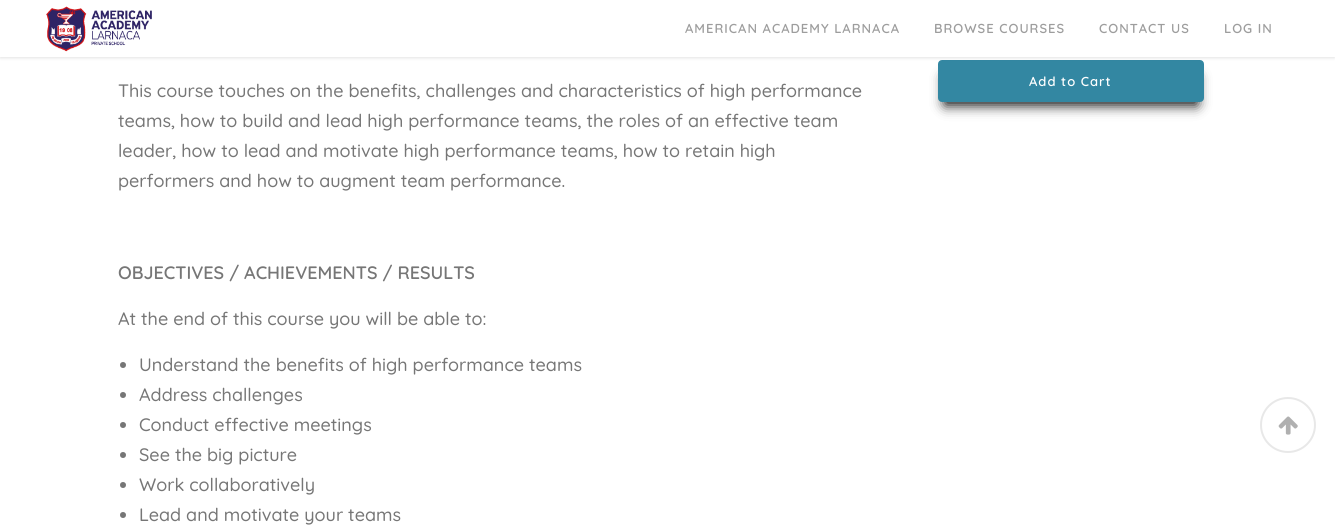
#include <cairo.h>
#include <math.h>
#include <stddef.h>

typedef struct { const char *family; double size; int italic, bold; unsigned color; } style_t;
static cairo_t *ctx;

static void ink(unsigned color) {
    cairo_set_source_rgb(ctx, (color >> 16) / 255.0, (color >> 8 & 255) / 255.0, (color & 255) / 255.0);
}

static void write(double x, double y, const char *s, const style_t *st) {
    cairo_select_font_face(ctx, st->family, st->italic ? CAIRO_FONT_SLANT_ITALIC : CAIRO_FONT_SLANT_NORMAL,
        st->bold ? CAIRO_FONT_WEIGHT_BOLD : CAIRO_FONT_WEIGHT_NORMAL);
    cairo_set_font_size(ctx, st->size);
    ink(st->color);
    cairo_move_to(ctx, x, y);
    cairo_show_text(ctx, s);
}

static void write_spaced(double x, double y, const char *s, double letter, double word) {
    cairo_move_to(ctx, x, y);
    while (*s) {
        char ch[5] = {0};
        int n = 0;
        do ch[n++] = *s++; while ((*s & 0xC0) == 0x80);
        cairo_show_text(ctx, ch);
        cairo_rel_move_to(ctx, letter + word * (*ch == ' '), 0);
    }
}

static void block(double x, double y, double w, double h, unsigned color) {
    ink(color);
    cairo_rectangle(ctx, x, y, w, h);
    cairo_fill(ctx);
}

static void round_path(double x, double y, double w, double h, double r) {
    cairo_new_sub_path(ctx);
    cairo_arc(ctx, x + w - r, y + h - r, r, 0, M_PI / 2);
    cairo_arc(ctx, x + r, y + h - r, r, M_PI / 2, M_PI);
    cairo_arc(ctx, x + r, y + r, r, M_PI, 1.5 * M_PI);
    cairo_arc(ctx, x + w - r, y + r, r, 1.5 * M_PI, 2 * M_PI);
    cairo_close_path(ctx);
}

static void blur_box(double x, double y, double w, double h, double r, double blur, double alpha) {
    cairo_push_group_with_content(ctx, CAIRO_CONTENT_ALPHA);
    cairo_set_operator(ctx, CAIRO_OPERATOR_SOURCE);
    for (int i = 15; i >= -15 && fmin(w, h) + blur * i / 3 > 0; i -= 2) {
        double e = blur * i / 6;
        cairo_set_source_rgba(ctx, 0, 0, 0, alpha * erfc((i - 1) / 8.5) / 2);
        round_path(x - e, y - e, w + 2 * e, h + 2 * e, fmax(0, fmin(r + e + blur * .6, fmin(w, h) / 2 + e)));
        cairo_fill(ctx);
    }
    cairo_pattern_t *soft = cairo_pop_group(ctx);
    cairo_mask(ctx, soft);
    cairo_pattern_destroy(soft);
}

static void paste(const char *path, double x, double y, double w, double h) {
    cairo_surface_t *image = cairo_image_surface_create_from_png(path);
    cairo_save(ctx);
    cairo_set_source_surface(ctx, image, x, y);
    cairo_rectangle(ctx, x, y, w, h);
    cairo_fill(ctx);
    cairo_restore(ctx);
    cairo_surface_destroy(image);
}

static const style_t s1 = {"Quicksand Medium", 18, 0, 0, 0x767676};
static const style_t s2 = {"Quicksand SemiBold", 18, 0, 0, 0x767676};

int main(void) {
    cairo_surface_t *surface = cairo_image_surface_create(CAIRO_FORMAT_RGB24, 1335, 531);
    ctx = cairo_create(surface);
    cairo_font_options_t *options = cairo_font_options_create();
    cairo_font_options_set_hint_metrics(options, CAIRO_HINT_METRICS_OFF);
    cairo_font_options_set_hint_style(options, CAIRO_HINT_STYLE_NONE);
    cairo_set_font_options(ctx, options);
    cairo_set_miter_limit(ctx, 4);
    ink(0xffffff);
    cairo_paint(ctx);
    ink(0x000000);
    blur_box(945, 77, 252, 28, 0, 6.5, 1);
    ink(0x3387a2);
    round_path(939, 61, 264, 40, 3);
    cairo_fill_preserve(ctx);
    cairo_stroke(ctx);
    ink(0x000000);
    blur_box(0, 1, 1335, 57, 0, 1.5, 0.11);
    block(0, 0, 1335, 57, 0xffffff);
    paste("pic1.png", 46, 6, 106, 46);
    cairo_select_font_face(ctx, "Quicksand SemiBold", CAIRO_FONT_SLANT_NORMAL, CAIRO_FONT_WEIGHT_NORMAL);
    cairo_set_font_size(ctx, 13);
    ink(0x9d9d9d);
    write_spaced(685, 33, "AMERICAN ACADEMY LARNACA", 1, 0);
    write_spaced(934, 33, "BROWSE COURSES", 1, 0);
    write_spaced(1099, 33, "CONTACT US", 1, 0);
    write_spaced(1224, 33, "LOG IN", 1, 0);
    ink(0xffffff);
    write_spaced(1029, 86, "Add to Cart", 1, 0);
    write(118, 97, "This course touches on the benefits, challenges and characteristics of high performance", &s1);
    write(118, 127, "teams, how to build and lead high performance teams, the roles of an effective team", &s1);
    write(118, 157, "leader, how to lead and motivate high performance teams, how to retain high", &s1);
    write(118, 187, "performers and how to augment team performance.", &s1);
    write(118, 279, "OBJECTIVES / ACHIEVEMENTS / RESULTS", &s2);
    write(118, 325, "At the end of this course you will be able to:", &s1);
    cairo_new_path(ctx);
    cairo_arc(ctx, 123, 365, 3, 0, 2 * M_PI);
    cairo_fill(ctx);
    write(139, 371, "Understand the benefits of high performance teams", &s1);
    cairo_new_path(ctx);
    cairo_arc(ctx, 123, 395, 3, 0, 2 * M_PI);
    cairo_fill(ctx);
    write(139, 401, "Address challenges", &s1);
    cairo_new_path(ctx);
    cairo_arc(ctx, 123, 425, 3, 0, 2 * M_PI);
    cairo_fill(ctx);
    write(139, 431, "Conduct effective meetings", &s1);
    cairo_new_path(ctx);
    cairo_arc(ctx, 123, 455, 3, 0, 2 * M_PI);
    cairo_fill(ctx);
    write(139, 461, "See the big picture", &s1);
    cairo_new_path(ctx);
    cairo_arc(ctx, 123, 485, 3, 0, 2 * M_PI);
    cairo_fill(ctx);
    write(139, 491, "Work collaboratively", &s1);
    cairo_new_path(ctx);
    cairo_arc(ctx, 123, 515, 3, 0, 2 * M_PI);
    cairo_fill(ctx);
    write(139, 521, "Lead and motivate your teams", &s1);
    cairo_new_path(ctx);
    cairo_arc(ctx, 1288, 425, 27, 0, 2 * M_PI);
    ink(0xe8e8e8);
    cairo_stroke(ctx);
    paste("pic2.png", 1278, 416, 20, 19);
    cairo_surface_write_to_png(surface, "screenshot.png");
    cairo_font_options_destroy(options);
    cairo_destroy(ctx);
    cairo_surface_destroy(surface);
    return 0;
}
